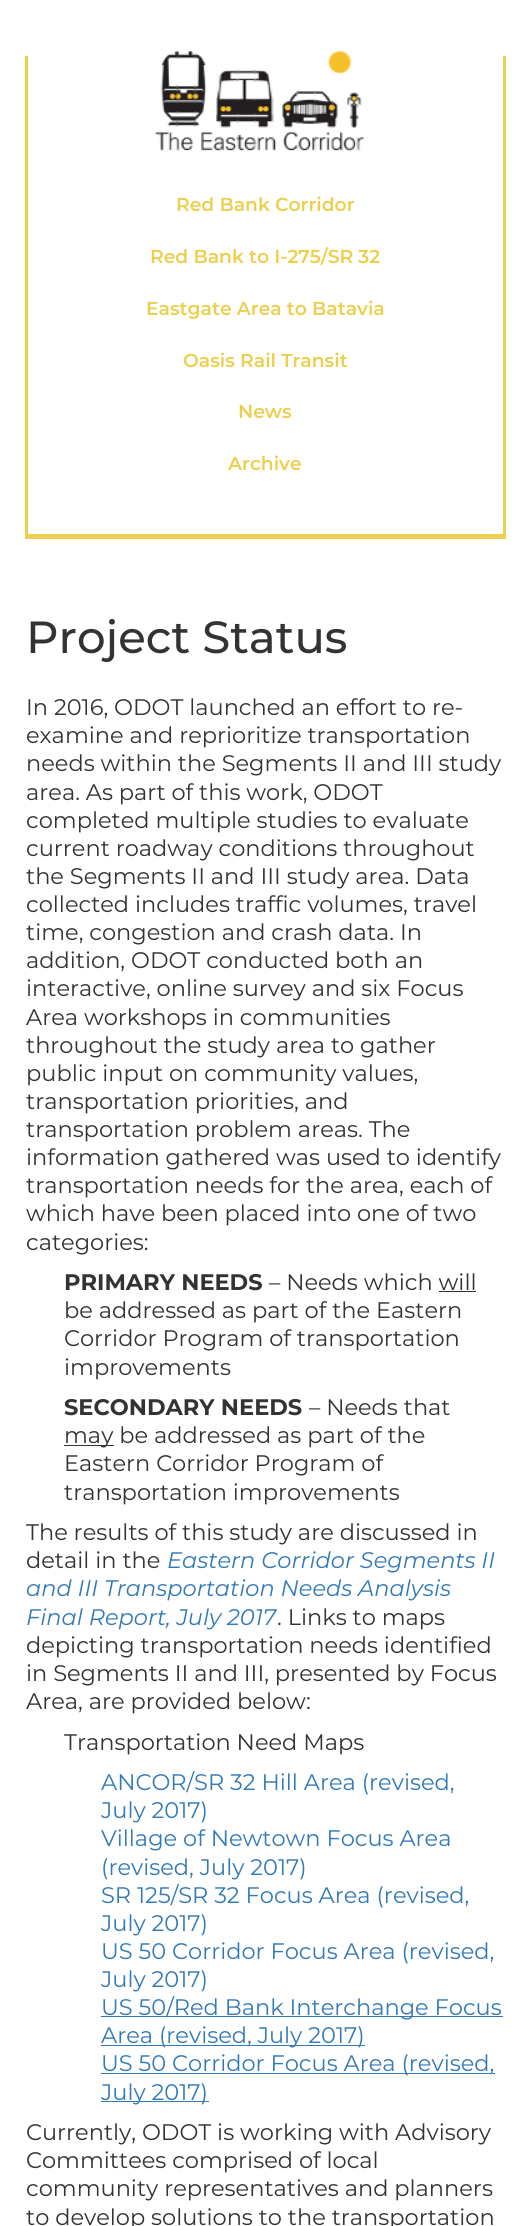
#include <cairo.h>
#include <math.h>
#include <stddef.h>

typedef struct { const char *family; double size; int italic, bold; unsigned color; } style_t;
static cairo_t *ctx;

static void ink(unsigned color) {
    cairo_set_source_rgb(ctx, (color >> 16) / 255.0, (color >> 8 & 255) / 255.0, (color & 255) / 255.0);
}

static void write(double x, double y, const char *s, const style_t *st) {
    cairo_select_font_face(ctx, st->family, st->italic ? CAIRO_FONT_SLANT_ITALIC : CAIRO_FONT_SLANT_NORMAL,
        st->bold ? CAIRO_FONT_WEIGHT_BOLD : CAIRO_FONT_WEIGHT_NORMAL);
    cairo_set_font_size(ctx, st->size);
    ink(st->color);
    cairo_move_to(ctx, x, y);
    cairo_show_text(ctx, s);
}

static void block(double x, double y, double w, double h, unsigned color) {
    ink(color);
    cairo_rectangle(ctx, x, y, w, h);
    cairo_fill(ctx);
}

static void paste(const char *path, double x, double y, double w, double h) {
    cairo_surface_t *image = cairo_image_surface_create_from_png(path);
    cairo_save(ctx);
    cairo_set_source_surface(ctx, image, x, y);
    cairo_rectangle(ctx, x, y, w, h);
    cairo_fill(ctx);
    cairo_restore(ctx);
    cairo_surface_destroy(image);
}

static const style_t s1 = {"Montserrat SemiBold", 18.75, 0, 0, 0xeccf4f};
static const style_t s2 = {"Montserrat Medium", 45, 0, 0, 0x333333};
static const style_t s3 = {"Montserrat", 22.5, 0, 0, 0x333333};
static const style_t s4 = {"Montserrat", 22.5, 0, 1, 0x333333};
static const style_t s5 = {"Montserrat", 22.5, 1, 0, 0x337ab7};
static const style_t s6 = {"Montserrat", 22.5, 0, 0, 0x337ab7};

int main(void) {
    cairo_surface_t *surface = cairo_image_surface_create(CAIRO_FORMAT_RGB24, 529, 2226);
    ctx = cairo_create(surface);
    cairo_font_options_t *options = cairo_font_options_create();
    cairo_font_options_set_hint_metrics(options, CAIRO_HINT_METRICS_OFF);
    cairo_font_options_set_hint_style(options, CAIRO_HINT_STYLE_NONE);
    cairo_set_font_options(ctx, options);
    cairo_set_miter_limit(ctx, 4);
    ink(0xffffff);
    cairo_paint(ctx);
    block(503, 56, 3, 483, 0xeccf4f);
    block(25, 534, 480, 5, 0xeccf4f);
    block(25, 56, 3, 483, 0xeccf4f);
    paste("pic1.png", 155, 51, 209, 101);
    write(176, 211, "Red Bank Corridor", &s1);
    write(150, 263, "Red Bank to I-275/SR 32", &s1);
    write(146, 315, "Eastgate Area to Batavia", &s1);
    write(183, 367, "Oasis Rail Transit", &s1);
    write(238, 418, "News", &s1);
    write(228, 470, "Archive", &s1);
    write(26, 653, "Project Status", &s2);
    write(26, 715, "In 2016, ODOT launched an effort to re-", &s3);
    write(26, 743, "examine and reprioritize transportation", &s3);
    write(26, 771, "needs within the Segments II and III study", &s3);
    write(26, 800, "area. As part of this work, ODOT", &s3);
    write(26, 828, "completed multiple studies to evaluate", &s3);
    write(26, 856, "current roadway conditions throughout", &s3);
    write(26, 884, "the Segments II and III study area. Data", &s3);
    write(26, 912, "collected includes traffic volumes, travel", &s3);
    write(26, 940, "time, congestion and crash data. In", &s3);
    write(26, 968, "addition, ODOT conducted both an", &s3);
    write(26, 996, "interactive, online survey and six Focus", &s3);
    write(26, 1025, "Area workshops in communities", &s3);
    write(26, 1053, "throughout the study area to gather", &s3);
    write(26, 1081, "public input on community values,", &s3);
    write(26, 1109, "transportation priorities, and", &s3);
    write(26, 1137, "transportation problem areas. The", &s3);
    write(26, 1165, "information gathered was used to identify", &s3);
    write(26, 1193, "transportation needs for the area, each of", &s3);
    write(26, 1221, "which have been placed into one of two", &s3);
    write(26, 1250, "categories:", &s3);
    write(64, 1290, "PRIMARY NEEDS", &s4);
    write(269, 1290, "– Needs which will", &s3);
    block(439, 1291, 37, 1, 0x333333);
    write(64, 1318, "be addressed as part of the Eastern", &s3);
    write(64, 1346, "Corridor Program of transportation", &s3);
    write(64, 1375, "improvements", &s3);
    write(64, 1415, "SECONDARY NEEDS", &s4);
    write(309, 1415, "– Needs that", &s3);
    block(64, 1445, 50, 1, 0x333333);
    write(64, 1443, "may be addressed as part of the", &s3);
    write(64, 1471, "Eastern Corridor Program of", &s3);
    write(64, 1500, "transportation improvements", &s3);
    write(26, 1540, "The results of this study are discussed in", &s3);
    write(26, 1568, "detail in the", &s3);
    write(167, 1568, "Eastern Corridor Segments II", &s5);
    write(26, 1596, "and III Transportation Needs Analysis", &s5);
    write(26, 1625, "Final Report, July 2017", &s5);
    write(277, 1625, ". Links to maps", &s3);
    write(26, 1653, "depicting transportation needs identified", &s3);
    write(26, 1681, "in Segments II and III, presented by Focus", &s3);
    write(26, 1709, "Area, are provided below:", &s3);
    write(64, 1750, "Transportation Need Maps", &s3);
    write(101, 1790, "ANCOR/SR 32 Hill Area (revised,", &s6);
    write(101, 1818, "July 2017)", &s6);
    write(101, 1846, "Village of Newtown Focus Area", &s6);
    write(101, 1875, "(revised, July 2017)", &s6);
    write(101, 1903, "SR 125/SR 32 Focus Area (revised,", &s6);
    write(101, 1931, "July 2017)", &s6);
    write(101, 1959, "US 50 Corridor Focus Area (revised,", &s6);
    write(101, 1987, "July 2017)", &s6);
    block(101, 2016, 402, 1, 0x337ab7);
    write(101, 2015, "US 50/Red Bank Interchange Focus", &s6);
    block(101, 2045, 264, 1, 0x337ab7);
    write(101, 2043, "Area (revised, July 2017)", &s6);
    block(101, 2073, 394, 1, 0x337ab7);
    write(101, 2071, "US 50 Corridor Focus Area (revised,", &s6);
    block(101, 2101, 108, 1, 0x337ab7);
    write(101, 2100, "July 2017)", &s6);
    write(26, 2140, "Currently, ODOT is working with Advisory", &s3);
    write(26, 2168, "Committees comprised of local", &s3);
    write(26, 2196, "community representatives and planners", &s3);
    write(26, 2225, "to develop solutions to the transportation", &s3);
    cairo_surface_write_to_png(surface, "screenshot.png");
    cairo_font_options_destroy(options);
    cairo_destroy(ctx);
    cairo_surface_destroy(surface);
    return 0;
}
